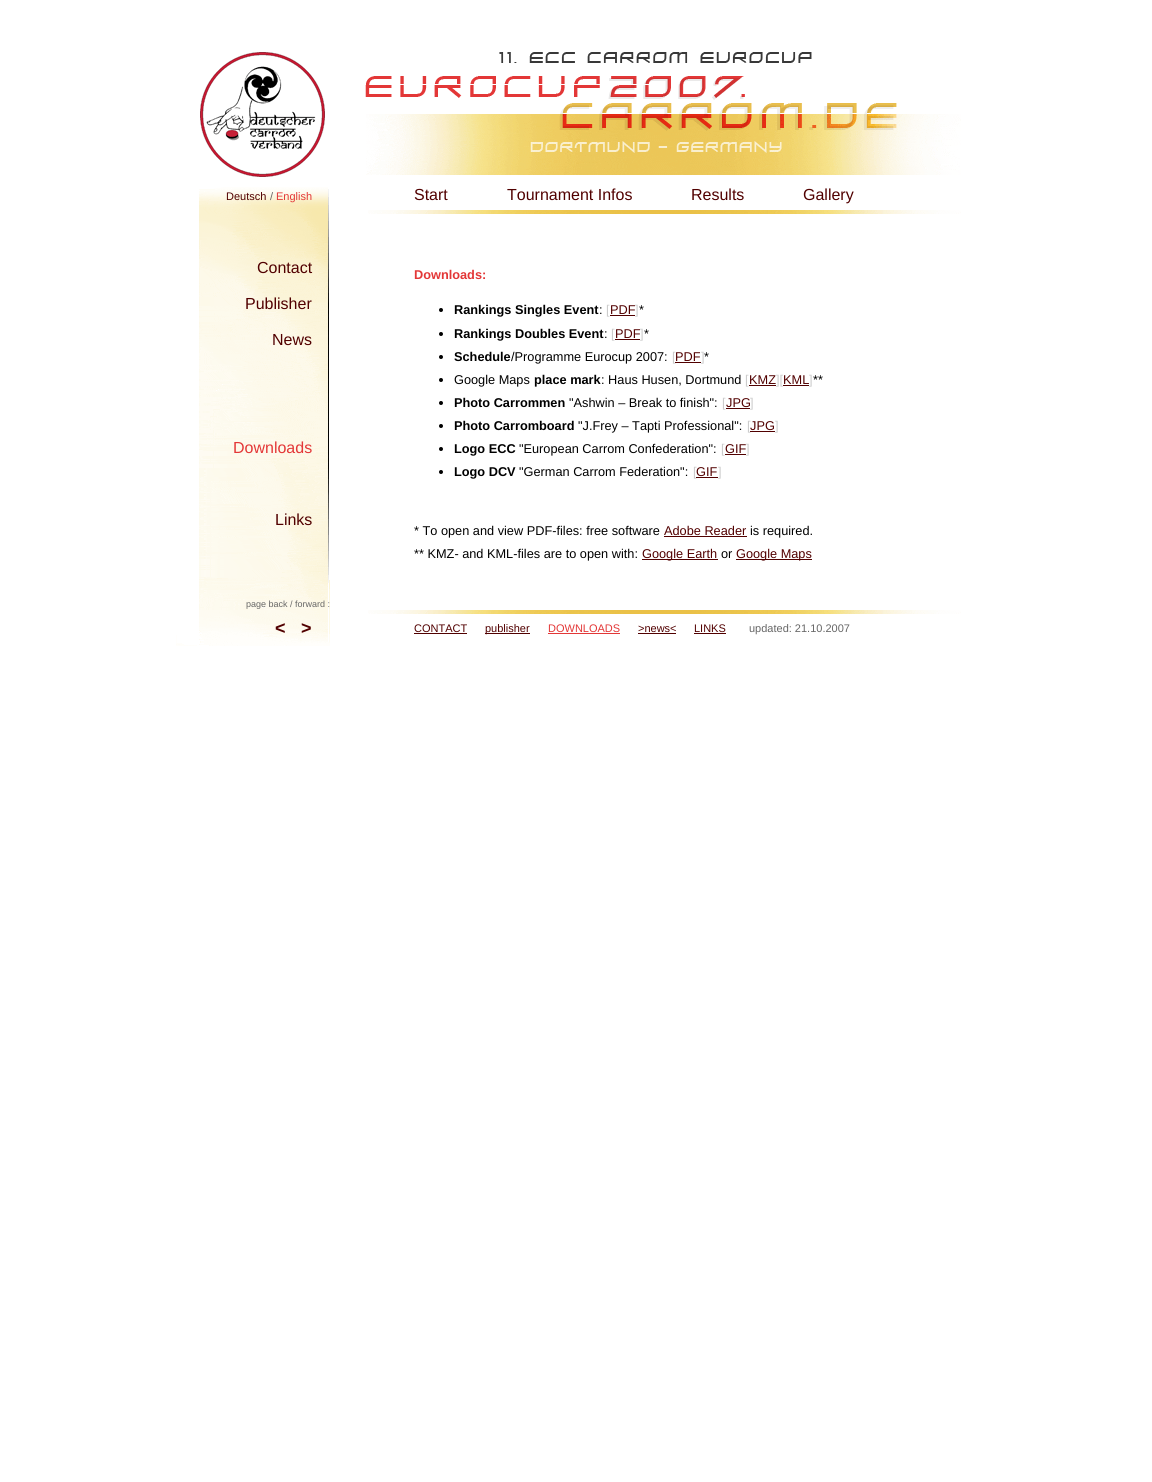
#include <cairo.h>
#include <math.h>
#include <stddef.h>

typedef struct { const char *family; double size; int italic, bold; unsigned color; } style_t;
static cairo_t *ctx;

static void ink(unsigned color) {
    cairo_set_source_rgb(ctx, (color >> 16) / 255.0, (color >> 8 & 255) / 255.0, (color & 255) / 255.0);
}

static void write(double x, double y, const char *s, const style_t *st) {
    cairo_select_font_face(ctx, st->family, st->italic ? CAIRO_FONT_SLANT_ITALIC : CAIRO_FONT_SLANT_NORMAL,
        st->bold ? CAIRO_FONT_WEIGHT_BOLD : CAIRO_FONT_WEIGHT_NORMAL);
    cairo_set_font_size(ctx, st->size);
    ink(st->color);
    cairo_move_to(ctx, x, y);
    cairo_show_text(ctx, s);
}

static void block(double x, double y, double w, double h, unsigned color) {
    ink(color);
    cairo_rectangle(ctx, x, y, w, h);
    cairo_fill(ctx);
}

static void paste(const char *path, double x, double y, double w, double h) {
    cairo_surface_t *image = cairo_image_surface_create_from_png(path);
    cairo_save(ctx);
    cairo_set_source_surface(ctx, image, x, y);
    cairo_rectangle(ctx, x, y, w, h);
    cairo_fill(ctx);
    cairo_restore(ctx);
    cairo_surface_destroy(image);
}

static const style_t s1 = {"Liberation Sans", 11, 0, 0, 0x510000};
static const style_t s2 = {"Liberation Sans", 11, 0, 0, 0x666666};
static const style_t s3 = {"Liberation Sans", 11, 0, 0, 0xe33737};
static const style_t s4 = {"Liberation Sans", 16, 0, 0, 0x510000};
static const style_t s5 = {"Liberation Sans", 16, 0, 0, 0xe33737};
static const style_t s6 = {"Liberation Sans", 9, 0, 0, 0x666666};
static const style_t s7 = {"Liberation Sans", 12.75, 0, 1, 0xe33737};
static const style_t s8 = {"Liberation Sans", 12.75, 0, 1, 0x000000};
static const style_t s9 = {"Liberation Sans", 12.75, 0, 0, 0x000000};
static const style_t s10 = {"Liberation Sans", 12.75, 0, 0, 0xcccccc};
static const style_t s11 = {"Liberation Sans", 12.75, 0, 0, 0x510000};
static const style_t s12 = {"Liberation Sans", 18, 0, 1, 0x510000};

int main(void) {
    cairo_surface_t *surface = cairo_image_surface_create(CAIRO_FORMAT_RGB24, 1152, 1482);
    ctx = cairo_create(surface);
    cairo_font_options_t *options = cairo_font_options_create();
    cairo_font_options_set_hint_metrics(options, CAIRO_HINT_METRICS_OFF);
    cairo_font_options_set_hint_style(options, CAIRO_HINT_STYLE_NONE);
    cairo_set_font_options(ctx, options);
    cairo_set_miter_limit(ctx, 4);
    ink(0xffffff);
    cairo_paint(ctx);
    paste("pic1.png", 200, 52, 125, 125);
    paste("pic2.png", 365, 52, 532, 62);
    paste("pic3.png", 366, 114, 595, 61);
    paste("pic4.png", 199, 187, 130, 27);
    write(226, 200, "Deutsch", &s1);
    write(270, 200, "/", &s2);
    write(276, 200, "English", &s3);
    paste("pic5.png", 368, 210, 593, 4);
    write(414, 200, "Start", &s4);
    write(507, 200, "Tournament Infos", &s4);
    write(691, 200, "Results", &s4);
    write(803, 200, "Gallery", &s4);
    paste("pic6.png", 199, 214, 131, 396);
    write(257, 273, "Contact", &s4);
    write(245, 309, "Publisher", &s4);
    write(272, 345, "News", &s4);
    write(233, 453, "Downloads", &s5);
    write(275, 525, "Links", &s4);
    write(246, 607, "page back / forward :", &s6);
    write(414, 279, "Downloads:", &s7);
    ink(0x000000);
    cairo_new_path(ctx);
    cairo_arc(ctx, 441, 310, 2, 0, 2 * M_PI);
    cairo_fill(ctx);
    write(454, 314, "Rankings Singles Event", &s8);
    write(599, 314, ":", &s9);
    write(606, 314, "[", &s10);
    write(610, 314, "PDF", &s11);
    block(610, 315, 25, 1, 0x510000);
    write(635, 314, "]", &s10);
    write(639, 314, "*", &s9);
    cairo_new_path(ctx);
    cairo_arc(ctx, 441, 334, 2, 0, 2 * M_PI);
    cairo_fill(ctx);
    write(454, 338, "Rankings Doubles Event", &s8);
    write(604, 338, ":", &s9);
    write(611, 338, "[", &s10);
    write(615, 338, "PDF", &s11);
    block(615, 339, 25, 1, 0x510000);
    write(640, 338, "]", &s10);
    write(644, 338, "*", &s9);
    cairo_new_path(ctx);
    cairo_arc(ctx, 441, 357, 2, 0, 2 * M_PI);
    cairo_fill(ctx);
    write(454, 361, "Schedule", &s8);
    write(511, 361, "/Programme Eurocup 2007:", &s9);
    write(672, 361, "[", &s10);
    write(675, 361, "PDF", &s11);
    block(675, 362, 26, 1, 0x510000);
    write(701, 361, "]", &s10);
    write(704, 361, "*", &s9);
    cairo_new_path(ctx);
    cairo_arc(ctx, 441, 380, 2, 0, 2 * M_PI);
    cairo_fill(ctx);
    write(454, 384, "Google Maps", &s9);
    write(534, 384, "place mark", &s8);
    write(601, 384, ": Haus Husen, Dortmund", &s9);
    write(745, 384, "[", &s10);
    write(749, 384, "KMZ", &s11);
    block(749, 385, 27, 1, 0x510000);
    write(776, 384, "][", &s10);
    block(783, 385, 26, 1, 0x510000);
    write(783, 384, "KML", &s11);
    write(809, 384, "]", &s10);
    write(813, 384, "**", &s9);
    cairo_new_path(ctx);
    cairo_arc(ctx, 441, 403, 2, 0, 2 * M_PI);
    cairo_fill(ctx);
    write(454, 407, "Photo Carrommen", &s8);
    write(569, 407, "\"Ashwin – Break to finish\":", &s9);
    write(722, 407, "[", &s10);
    write(726, 407, "JPG", &s11);
    block(726, 408, 24, 1, 0x510000);
    write(750, 407, "]", &s10);
    ink(0x000000);
    cairo_new_path(ctx);
    cairo_arc(ctx, 441, 426, 2, 0, 2 * M_PI);
    cairo_fill(ctx);
    write(454, 430, "Photo Carromboard", &s8);
    write(578, 430, "\"J.Frey – Tapti Professional\":", &s9);
    write(747, 430, "[", &s10);
    write(750, 430, "JPG", &s11);
    block(750, 431, 25, 1, 0x510000);
    write(775, 430, "]", &s10);
    ink(0x000000);
    cairo_new_path(ctx);
    cairo_arc(ctx, 441, 449, 2, 0, 2 * M_PI);
    cairo_fill(ctx);
    write(454, 453, "Logo ECC", &s8);
    write(519, 453, "\"European Carrom Confederation\":", &s9);
    write(721, 453, "[", &s10);
    write(725, 453, "GIF", &s11);
    block(725, 454, 21, 1, 0x510000);
    write(746, 453, "]", &s10);
    ink(0x000000);
    cairo_new_path(ctx);
    cairo_arc(ctx, 441, 472, 2, 0, 2 * M_PI);
    cairo_fill(ctx);
    write(454, 476, "Logo DCV", &s8);
    write(519, 476, "\"German Carrom Federation\":", &s9);
    write(693, 476, "[", &s10);
    write(696, 476, "GIF", &s11);
    block(696, 477, 22, 1, 0x510000);
    write(718, 476, "]", &s10);
    write(414, 535, "* To open and view PDF-files: free software", &s9);
    write(664, 535, "Adobe Reader", &s11);
    block(664, 536, 83, 1, 0x510000);
    write(750, 535, "is required.", &s9);
    write(414, 558, "** KMZ- and KML-files are to open with:", &s9);
    block(642, 559, 76, 1, 0x510000);
    write(642, 558, "Google Earth", &s11);
    write(721, 558, "or", &s9);
    block(736, 559, 76, 1, 0x510000);
    write(736, 558, "Google Maps", &s11);
    paste("pic7.png", 176, 610, 154, 36);
    write(275, 634, "<", &s12);
    write(301, 634, ">", &s12);
    paste("pic5.png", 368, 610, 593, 4);
    write(414, 632, "CONTACT", &s1);
    block(414, 633, 53, 1, 0x510000);
    block(485, 633, 45, 1, 0x510000);
    write(485, 632, "publisher", &s1);
    write(548, 632, "DOWNLOADS", &s3);
    block(548, 633, 72, 1, 0xe33737);
    write(638, 632, ">news<", &s1);
    block(638, 633, 38, 1, 0x510000);
    write(694, 632, "LINKS", &s1);
    block(694, 633, 32, 1, 0x510000);
    write(749, 632, "updated: 21.10.2007", &s2);
    cairo_surface_write_to_png(surface, "screenshot.png");
    cairo_font_options_destroy(options);
    cairo_destroy(ctx);
    cairo_surface_destroy(surface);
    return 0;
}
